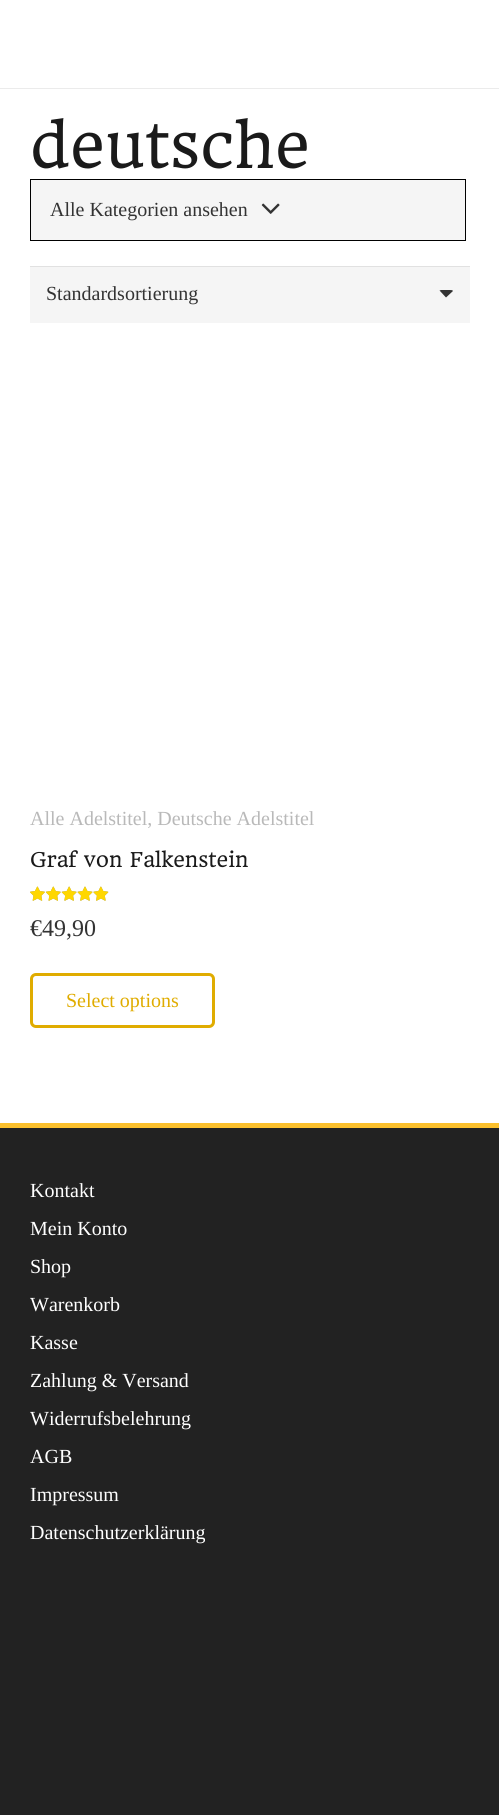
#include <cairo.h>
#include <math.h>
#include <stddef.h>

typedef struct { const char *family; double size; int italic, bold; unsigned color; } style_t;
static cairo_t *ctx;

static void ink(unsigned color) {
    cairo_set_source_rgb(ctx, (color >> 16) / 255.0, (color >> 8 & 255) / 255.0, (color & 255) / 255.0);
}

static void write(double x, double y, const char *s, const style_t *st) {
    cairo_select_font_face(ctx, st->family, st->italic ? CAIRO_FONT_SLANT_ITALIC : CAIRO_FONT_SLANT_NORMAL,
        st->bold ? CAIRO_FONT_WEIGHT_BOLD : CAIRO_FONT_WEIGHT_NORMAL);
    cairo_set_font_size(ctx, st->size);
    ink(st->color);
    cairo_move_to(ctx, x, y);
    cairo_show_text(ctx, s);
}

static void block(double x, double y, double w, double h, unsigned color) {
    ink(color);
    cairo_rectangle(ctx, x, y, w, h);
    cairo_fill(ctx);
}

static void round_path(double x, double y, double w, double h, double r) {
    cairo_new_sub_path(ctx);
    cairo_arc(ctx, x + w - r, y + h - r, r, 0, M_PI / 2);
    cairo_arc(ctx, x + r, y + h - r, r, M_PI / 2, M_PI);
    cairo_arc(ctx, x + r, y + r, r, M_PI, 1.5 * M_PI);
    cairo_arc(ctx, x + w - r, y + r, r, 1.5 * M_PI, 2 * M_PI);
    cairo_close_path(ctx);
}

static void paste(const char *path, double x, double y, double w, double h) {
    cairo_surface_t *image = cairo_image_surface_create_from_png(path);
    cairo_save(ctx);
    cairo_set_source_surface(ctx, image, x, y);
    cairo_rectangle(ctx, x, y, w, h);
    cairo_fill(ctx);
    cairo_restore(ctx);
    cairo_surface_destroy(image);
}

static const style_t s1 = {"HeadlandOne", 60, 0, 0, 0x1a1a1a};
static const style_t s2 = {"Liberation Serif", 20, 0, 0, 0x333333};
static const style_t s3 = {"Liberation Serif", 20, 0, 0, 0xb9b9b9};
static const style_t s4 = {"HeadlandOne", 20, 0, 0, 0x1a1a1a};
static const style_t s5 = {"Liberation Serif", 24, 0, 0, 0x333333};
static const style_t s6 = {"Liberation Serif", 20, 0, 0, 0xe0ac00};
static const style_t s7 = {"Liberation Serif", 20, 0, 0, 0xffffff};

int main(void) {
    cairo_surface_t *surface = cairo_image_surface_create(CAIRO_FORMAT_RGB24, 499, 1815);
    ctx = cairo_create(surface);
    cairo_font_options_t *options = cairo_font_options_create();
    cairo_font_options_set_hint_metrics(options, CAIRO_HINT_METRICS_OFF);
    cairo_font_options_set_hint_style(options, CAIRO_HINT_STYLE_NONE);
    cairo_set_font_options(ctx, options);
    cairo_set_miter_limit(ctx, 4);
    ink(0xffffff);
    cairo_paint(ctx);
    block(0, 88, 499, 1, 0xebebeb);
    write(30, 168, "deutsche", &s1);
    ink(0xf5f5f5);
    cairo_rectangle(ctx, 30.5, 179.5, 435, 61);
    cairo_fill_preserve(ctx);
    ink(0x000000);
    cairo_set_line_width(ctx, 1);
    cairo_stroke(ctx);
    write(50, 216, "Alle Kategorien ansehen", &s2);
    paste("pic1.png", 261, 203, 19, 11);
    block(30, 267, 440, 56, 0xf5f5f5);
    block(30, 266, 440, 1, 0xe1e1e1);
    write(46, 300, "Standardsortierung", &s2);
    cairo_new_path(ctx);
    cairo_move_to(ctx, 441, 290);
    cairo_curve_to(ctx, 440.5, 290, 440, 290.5, 439.5, 290.5);
    cairo_line_to(ctx, 446, 297.5);
    cairo_line_to(ctx, 453, 291);
    cairo_curve_to(ctx, 452.5, 290, 451.5, 290, 449.5, 290);
    cairo_close_path(ctx);
    cairo_fill(ctx);
    write(30, 825, "Alle Adelstitel, Deutsche Adelstitel", &s3);
    write(30, 867, "Graf von Falkenstein", &s4);
    paste("pic2.png", 30, 886, 79, 15);
    paste("pic3.png", 30, 886, 79, 15);
    write(30, 936, "€49,90", &s5);
    round_path(31.5, 974.5, 182, 52, 4.5);
    ink(0xe0ac00);
    cairo_set_line_width(ctx, 3);
    cairo_stroke(ctx);
    write(66, 1007, "Select options", &s6);
    block(0, 1128, 499, 687, 0x222222);
    block(0, 1123, 499, 5, 0xfbc02d);
    write(30, 1197, "Kontakt", &s7);
    write(30, 1235, "Mein Konto", &s7);
    write(30, 1273, "Shop", &s7);
    write(30, 1311, "Warenkorb", &s7);
    write(30, 1349, "Kasse", &s7);
    write(30, 1387, "Zahlung & Versand", &s7);
    write(30, 1425, "Widerrufsbelehrung", &s7);
    write(30, 1463, "AGB", &s7);
    write(30, 1501, "Impressum", &s7);
    write(30, 1539, "Datenschutzerklärung", &s7);
    cairo_surface_write_to_png(surface, "screenshot.png");
    cairo_font_options_destroy(options);
    cairo_destroy(ctx);
    cairo_surface_destroy(surface);
    return 0;
}
